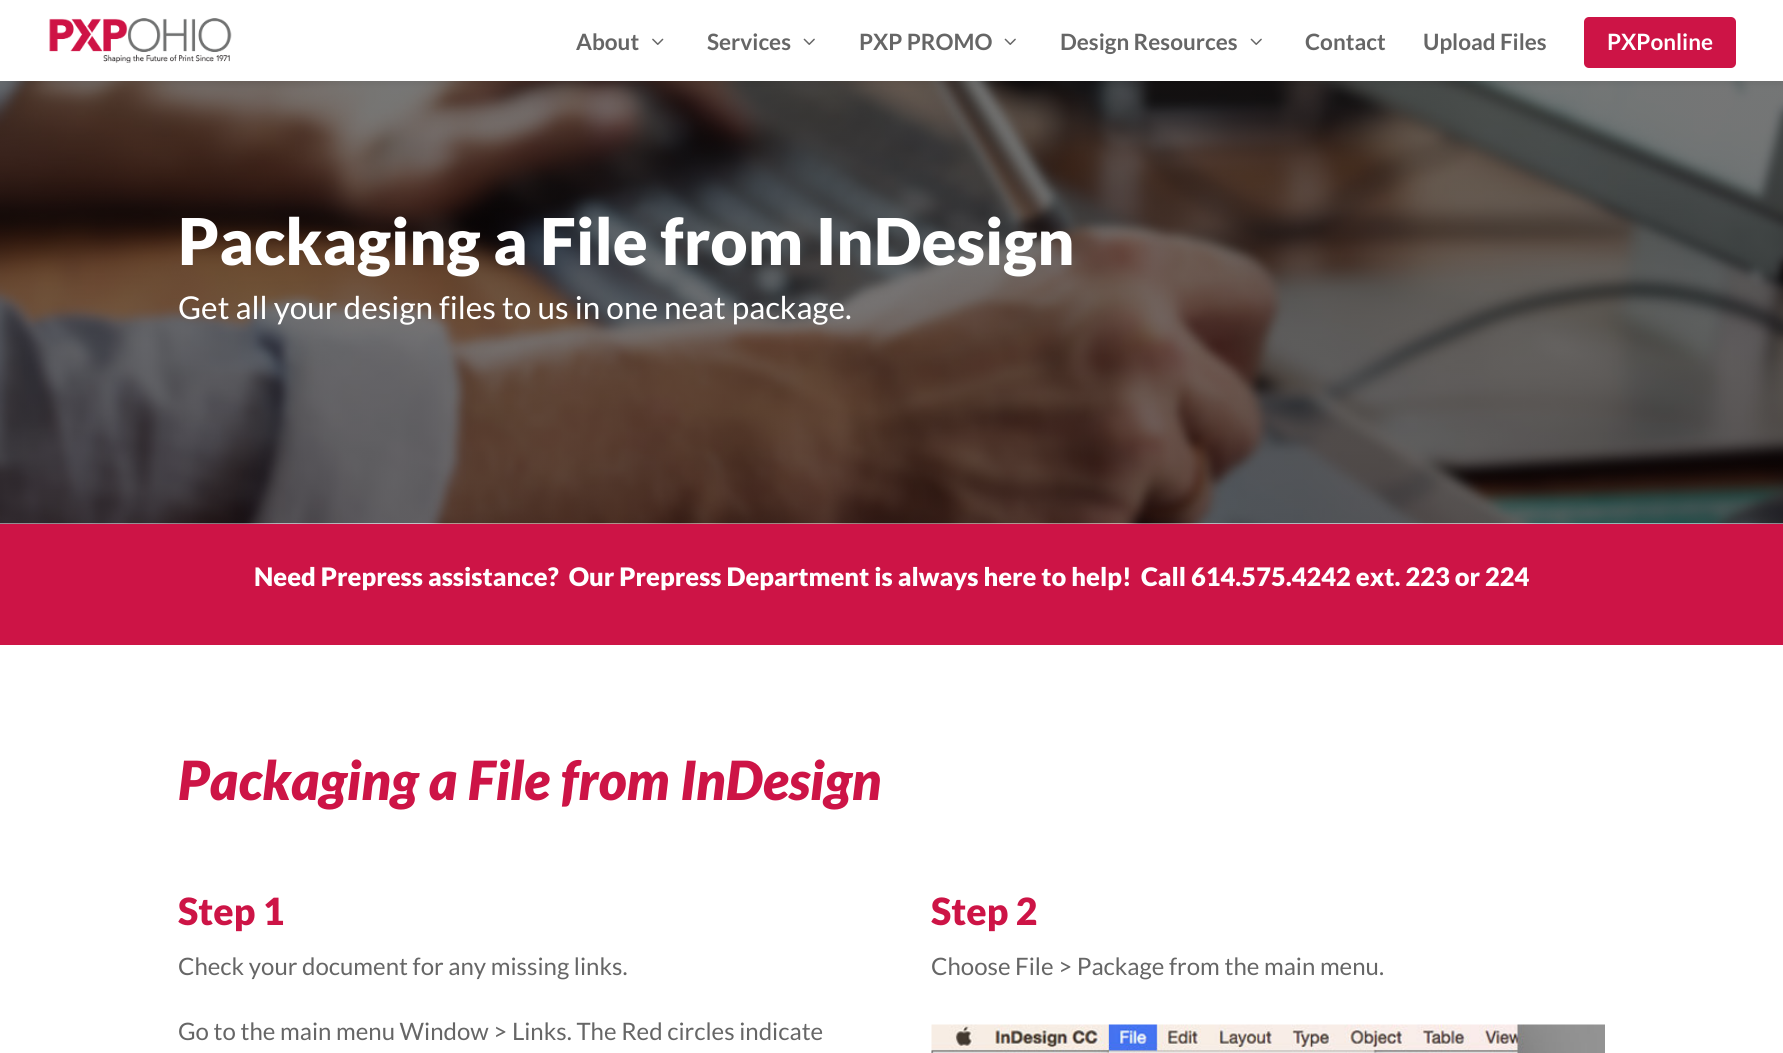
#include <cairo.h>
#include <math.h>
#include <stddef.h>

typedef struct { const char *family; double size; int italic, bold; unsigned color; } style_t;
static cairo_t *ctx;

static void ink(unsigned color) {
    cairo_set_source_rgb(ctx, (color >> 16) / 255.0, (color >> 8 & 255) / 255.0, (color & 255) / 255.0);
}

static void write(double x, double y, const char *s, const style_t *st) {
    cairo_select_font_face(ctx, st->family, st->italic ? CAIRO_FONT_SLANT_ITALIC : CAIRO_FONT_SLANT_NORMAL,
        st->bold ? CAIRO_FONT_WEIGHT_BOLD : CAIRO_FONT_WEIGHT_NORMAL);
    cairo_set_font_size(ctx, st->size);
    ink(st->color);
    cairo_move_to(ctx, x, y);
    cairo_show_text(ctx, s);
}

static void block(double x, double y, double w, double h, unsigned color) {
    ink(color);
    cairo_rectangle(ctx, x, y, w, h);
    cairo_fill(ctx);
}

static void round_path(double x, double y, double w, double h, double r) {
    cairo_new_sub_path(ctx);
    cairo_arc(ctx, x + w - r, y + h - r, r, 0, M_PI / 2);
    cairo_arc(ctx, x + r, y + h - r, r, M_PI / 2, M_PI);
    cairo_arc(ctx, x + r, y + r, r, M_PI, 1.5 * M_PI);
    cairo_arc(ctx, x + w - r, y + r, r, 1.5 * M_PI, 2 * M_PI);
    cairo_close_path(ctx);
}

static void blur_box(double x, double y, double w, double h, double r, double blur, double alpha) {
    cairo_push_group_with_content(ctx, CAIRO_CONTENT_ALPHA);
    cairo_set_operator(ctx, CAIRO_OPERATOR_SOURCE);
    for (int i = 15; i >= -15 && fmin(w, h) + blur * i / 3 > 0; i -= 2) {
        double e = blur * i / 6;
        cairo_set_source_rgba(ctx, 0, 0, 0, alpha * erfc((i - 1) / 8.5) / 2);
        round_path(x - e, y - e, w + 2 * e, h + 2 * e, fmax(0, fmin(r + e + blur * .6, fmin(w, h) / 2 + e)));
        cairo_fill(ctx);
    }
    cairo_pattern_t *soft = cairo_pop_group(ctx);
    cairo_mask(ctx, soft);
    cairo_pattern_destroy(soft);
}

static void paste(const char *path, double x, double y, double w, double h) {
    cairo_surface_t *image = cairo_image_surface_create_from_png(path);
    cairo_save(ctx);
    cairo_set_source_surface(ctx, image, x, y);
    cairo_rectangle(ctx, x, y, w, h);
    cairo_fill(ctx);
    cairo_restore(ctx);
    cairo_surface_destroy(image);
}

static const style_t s1 = {"Lato", 22.5, 0, 1, 0x666666};
static const style_t s2 = {"Lato", 22.5, 0, 1, 0xffffff};
static const style_t s3 = {"Lato Black", 64.5, 0, 0, 0xffffff};
static const style_t s4 = {"Lato", 31.5, 0, 0, 0xffffff};
static const style_t s5 = {"Lato Black", 25.5, 0, 0, 0xffffff};
static const style_t s6 = {"Lato Black", 54, 1, 0, 0xcd1446};
static const style_t s7 = {"Lato Black", 37.5, 0, 0, 0xcd1446};
static const style_t s8 = {"Lato", 24, 0, 0, 0x666666};

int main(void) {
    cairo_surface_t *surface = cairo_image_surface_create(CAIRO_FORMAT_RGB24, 1783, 1053);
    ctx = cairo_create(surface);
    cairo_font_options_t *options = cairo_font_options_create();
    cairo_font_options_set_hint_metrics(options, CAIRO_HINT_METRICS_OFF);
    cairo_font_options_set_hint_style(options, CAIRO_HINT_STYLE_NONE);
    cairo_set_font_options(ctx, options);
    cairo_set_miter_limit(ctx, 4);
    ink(0xffffff);
    cairo_paint(ctx);
    paste("pic4.png", 0, 81, 1783, 443);
    ink(0x000000);
    blur_box(0, 0, 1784, 81, 0, 5, 0.1);
    block(0, 0, 1783, 81, 0xffffff);
    paste("pic1.png", 49, 18, 183, 45);
    write(576, 50, "About", &s1);
    paste("pic2.png", 652, 38, 12, 7);
    write(707, 50, "Services", &s1);
    paste("pic3.png", 803, 38, 12, 7);
    write(859, 50, "PXP PROMO", &s1);
    paste("pic3.png", 1004, 38, 12, 7);
    write(1060, 50, "Design Resources", &s1);
    paste("pic3.png", 1250, 38, 12, 7);
    write(1305, 50, "Contact", &s1);
    write(1423, 50, "Upload Files", &s1);
    ink(0xcd1446);
    round_path(1584, 17, 152, 51, 5);
    cairo_fill(ctx);
    write(1607, 50, "PXPonline", &s2);
    write(178, 265, "Packaging a File from InDesign", &s3);
    write(178, 319, "Get all your design files to us in one neat package.", &s4);
    block(0, 524, 1783, 121, 0xcd1446);
    write(254, 586, "Need Prepress assistance?  Our Prepress Department is always here to help!", &s5);
    write(1141, 586, "Call 614.575.4242 ext. 223 or 224", &s5);
    write(178, 800, "Packaging a File from InDesign", &s6);
    write(178, 925, "Step 1", &s7);
    write(178, 975, "Check your document for any missing links.", &s8);
    write(178, 1040, "Go to the main menu Window > Links. The Red circles indicate", &s8);
    write(931, 925, "Step 2", &s7);
    write(931, 975, "Choose File > Package from the main menu.", &s8);
    paste("pic5.png", 931, 1024, 674, 29);
    cairo_surface_write_to_png(surface, "screenshot.png");
    cairo_font_options_destroy(options);
    cairo_destroy(ctx);
    cairo_surface_destroy(surface);
    return 0;
}
